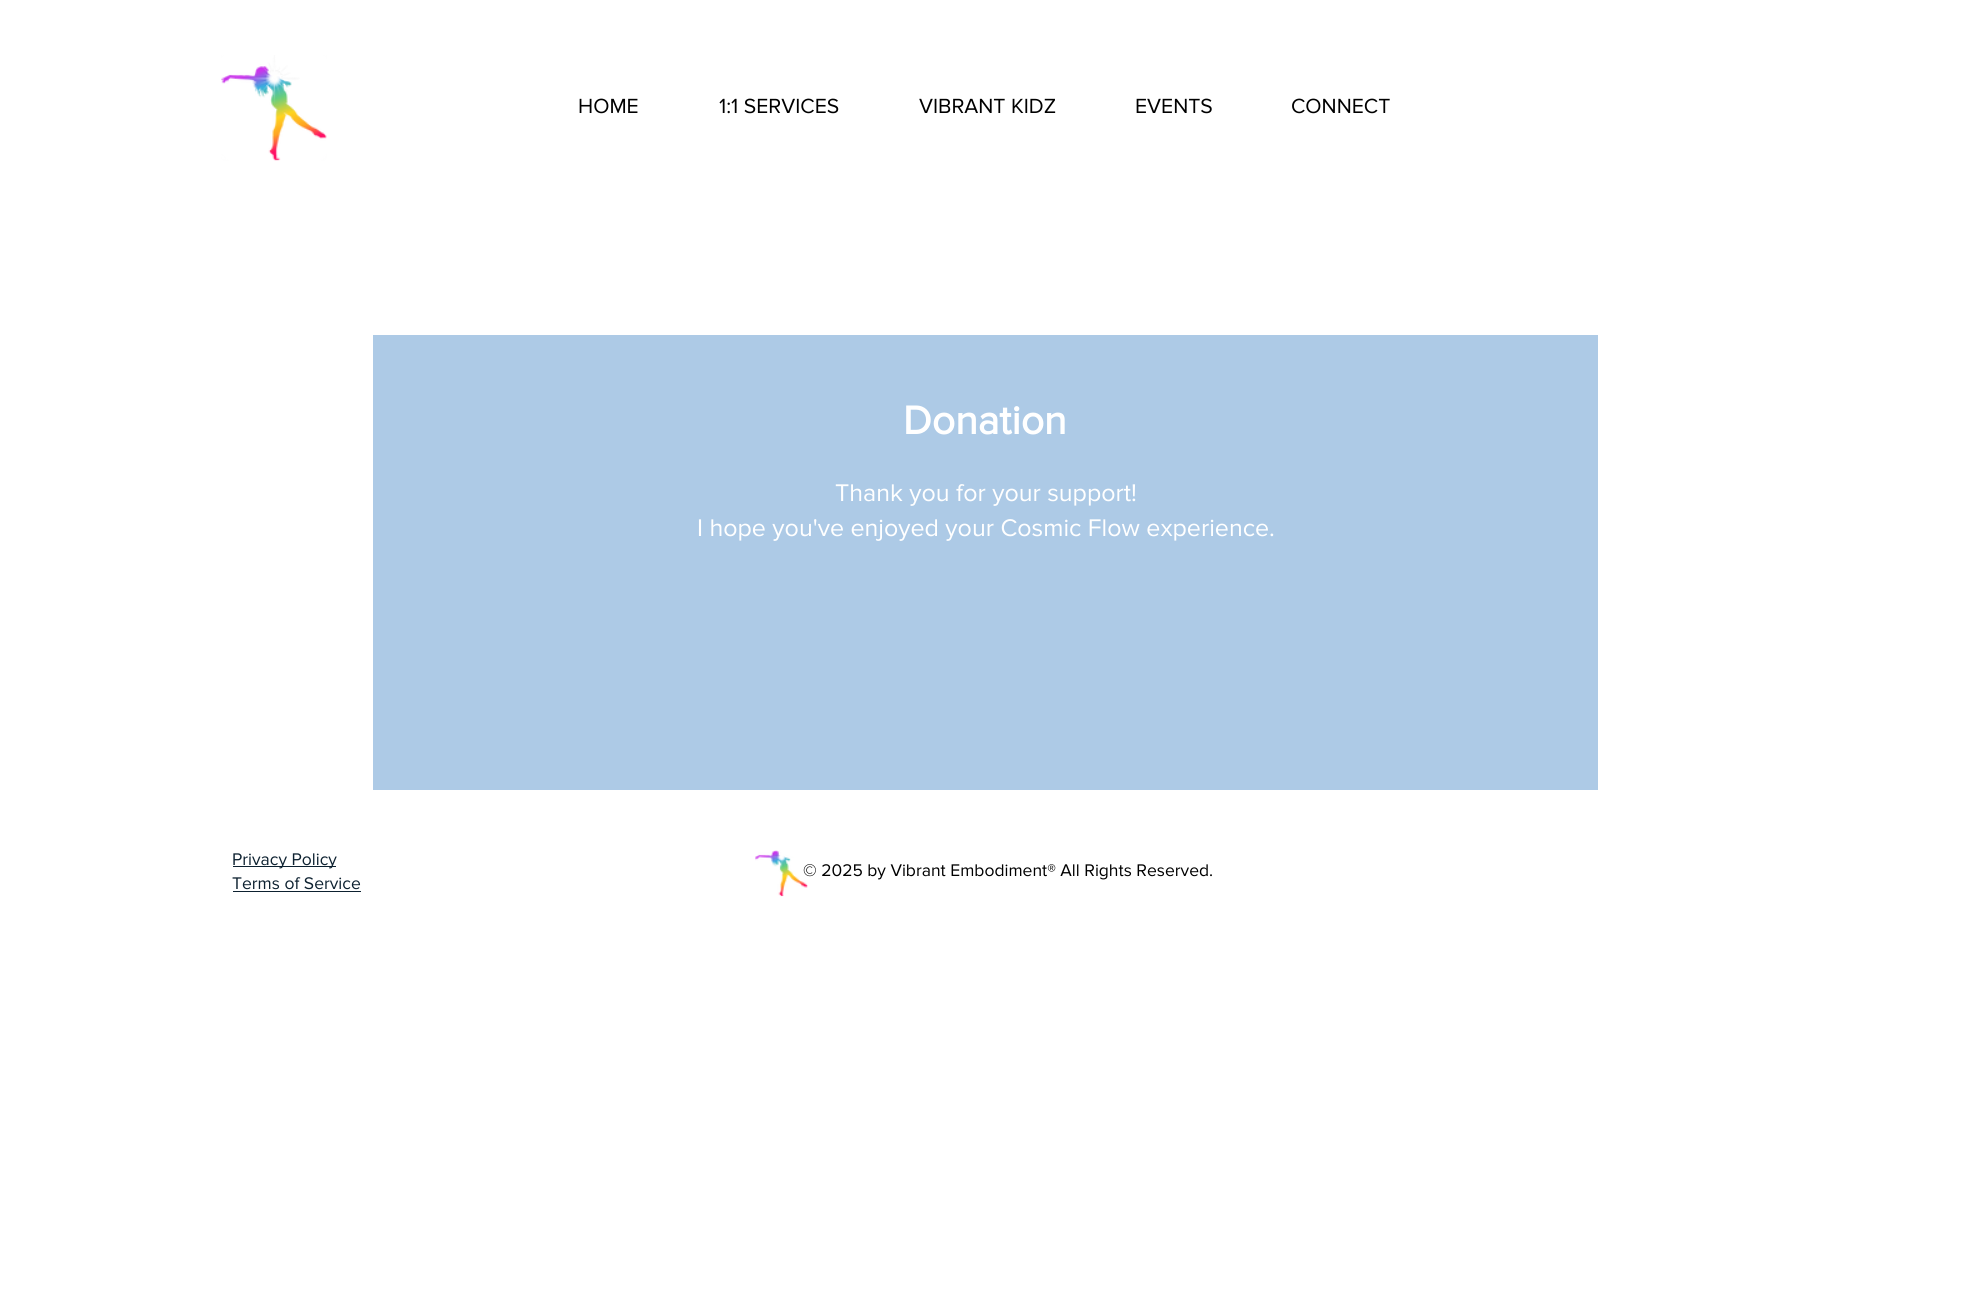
#include <cairo.h>
#include <math.h>
#include <stddef.h>

typedef struct { const char *family; double size; int italic, bold; unsigned color; } style_t;
static cairo_t *ctx;

static void ink(unsigned color) {
    cairo_set_source_rgb(ctx, (color >> 16) / 255.0, (color >> 8 & 255) / 255.0, (color & 255) / 255.0);
}

static void write(double x, double y, const char *s, const style_t *st) {
    cairo_select_font_face(ctx, st->family, st->italic ? CAIRO_FONT_SLANT_ITALIC : CAIRO_FONT_SLANT_NORMAL,
        st->bold ? CAIRO_FONT_WEIGHT_BOLD : CAIRO_FONT_WEIGHT_NORMAL);
    cairo_set_font_size(ctx, st->size);
    ink(st->color);
    cairo_move_to(ctx, x, y);
    cairo_show_text(ctx, s);
}

static void block(double x, double y, double w, double h, unsigned color) {
    ink(color);
    cairo_rectangle(ctx, x, y, w, h);
    cairo_fill(ctx);
}

static void paste(const char *path, double x, double y, double w, double h) {
    cairo_surface_t *image = cairo_image_surface_create_from_png(path);
    cairo_save(ctx);
    cairo_set_source_surface(ctx, image, x, y);
    cairo_rectangle(ctx, x, y, w, h);
    cairo_fill(ctx);
    cairo_restore(ctx);
    cairo_surface_destroy(image);
}

static const style_t s1 = {"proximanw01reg", 21.25, 0, 0, 0x000000};
static const style_t s2 = {"proximanw01reg", 41, 0, 1, 0xffffff};
static const style_t s3 = {"proximanw01reg", 25, 0, 0, 0xffffff};
static const style_t s4 = {"proximanw01reg", 17.5, 0, 0, 0x0d2130};
static const style_t s5 = {"proximanw01reg", 17.5, 0, 0, 0x000000};

int main(void) {
    cairo_surface_t *surface = cairo_image_surface_create(CAIRO_FORMAT_RGB24, 1968, 1302);
    ctx = cairo_create(surface);
    cairo_font_options_t *options = cairo_font_options_create();
    cairo_font_options_set_hint_metrics(options, CAIRO_HINT_METRICS_OFF);
    cairo_font_options_set_hint_style(options, CAIRO_HINT_STYLE_NONE);
    cairo_set_font_options(ctx, options);
    cairo_set_miter_limit(ctx, 4);
    ink(0xffffff);
    cairo_paint(ctx);
    paste("pic1.png", 221, 55, 106, 106);
    write(578, 113, "HOME", &s1);
    write(719, 113, "1:1 SERVICES", &s1);
    write(919, 113, "VIBRANT KIDZ", &s1);
    write(1135, 113, "EVENTS", &s1);
    write(1291, 113, "CONNECT", &s1);
    block(373, 335, 1225, 455, 0xadcae6);
    write(903, 434, "Donation", &s2);
    write(835, 501, "Thank you for your support!", &s3);
    write(697, 536, "I hope you've enjoyed your Cosmic Flow experience.", &s3);
    block(233, 866, 103, 1, 0x0d2130);
    write(232, 865, "Privacy Policy", &s4);
    write(232, 889, "Terms of Service", &s4);
    block(233, 891, 128, 1, 0x0d2130);
    paste("pic2.png", 755, 850, 53, 47);
    write(803, 876, "© 2025 by Vibrant Embodiment® All Rights Reserved.", &s5);
    cairo_surface_write_to_png(surface, "screenshot.png");
    cairo_font_options_destroy(options);
    cairo_destroy(ctx);
    cairo_surface_destroy(surface);
    return 0;
}
